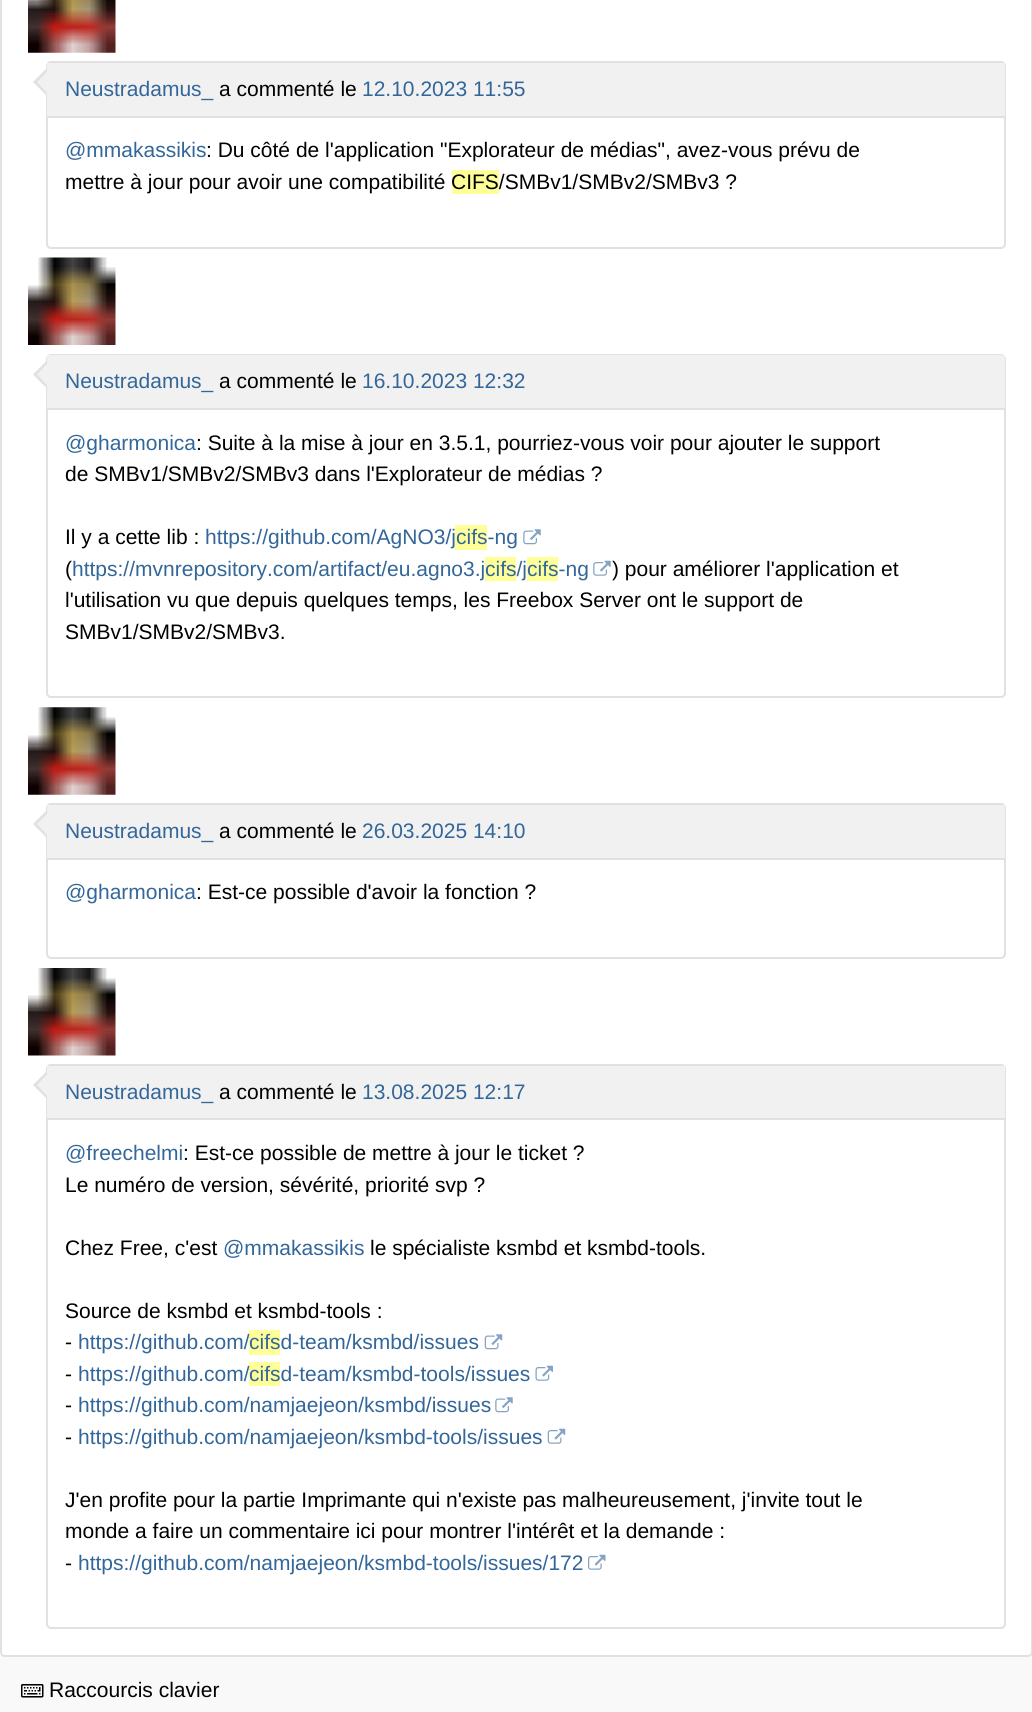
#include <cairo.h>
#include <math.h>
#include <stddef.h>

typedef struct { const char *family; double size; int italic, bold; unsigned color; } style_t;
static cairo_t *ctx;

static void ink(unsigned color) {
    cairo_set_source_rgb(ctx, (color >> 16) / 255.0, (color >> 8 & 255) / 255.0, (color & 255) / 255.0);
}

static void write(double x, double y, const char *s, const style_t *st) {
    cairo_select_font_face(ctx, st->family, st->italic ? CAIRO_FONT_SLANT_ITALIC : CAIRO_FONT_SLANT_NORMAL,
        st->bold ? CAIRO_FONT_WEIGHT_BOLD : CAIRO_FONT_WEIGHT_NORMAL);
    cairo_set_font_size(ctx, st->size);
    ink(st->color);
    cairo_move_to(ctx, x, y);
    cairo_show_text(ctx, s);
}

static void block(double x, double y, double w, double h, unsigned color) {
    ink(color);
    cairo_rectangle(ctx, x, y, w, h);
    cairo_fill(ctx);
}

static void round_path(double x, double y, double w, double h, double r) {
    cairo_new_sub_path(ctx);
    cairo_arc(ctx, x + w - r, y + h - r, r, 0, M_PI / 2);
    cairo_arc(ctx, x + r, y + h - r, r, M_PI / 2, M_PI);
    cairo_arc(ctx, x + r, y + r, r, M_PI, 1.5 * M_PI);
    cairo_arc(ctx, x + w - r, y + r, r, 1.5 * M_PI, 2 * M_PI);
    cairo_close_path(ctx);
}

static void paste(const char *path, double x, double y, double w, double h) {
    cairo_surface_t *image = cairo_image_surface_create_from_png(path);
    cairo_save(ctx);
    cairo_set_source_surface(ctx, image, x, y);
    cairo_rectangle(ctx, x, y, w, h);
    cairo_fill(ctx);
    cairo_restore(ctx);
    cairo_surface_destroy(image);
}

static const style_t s1 = {"Liberation Sans", 21, 0, 0, 0x336699};
static const style_t s2 = {"Liberation Sans", 21, 0, 0, 0x000000};

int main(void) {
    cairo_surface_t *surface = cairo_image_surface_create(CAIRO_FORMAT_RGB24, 1032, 1712);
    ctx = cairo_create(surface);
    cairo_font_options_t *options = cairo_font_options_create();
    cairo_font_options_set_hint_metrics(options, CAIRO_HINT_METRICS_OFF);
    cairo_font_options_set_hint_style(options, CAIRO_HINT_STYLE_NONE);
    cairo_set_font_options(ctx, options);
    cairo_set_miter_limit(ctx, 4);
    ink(0xf9f9f9);
    cairo_paint(ctx);
    ink(0xffffff);
    round_path(1, -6, 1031, 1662, 4);
    cairo_fill_preserve(ctx);
    ink(0xe1e1e1);
    cairo_stroke(ctx);
    paste("pic1.png", 28, 0, 88, 53);
    round_path(47, 62, 958, 186, 4);
    cairo_stroke(ctx);
    cairo_new_path(ctx);
    cairo_move_to(ctx, 47, 68);
    cairo_line_to(ctx, 47, 96);
    cairo_line_to(ctx, 33, 82);
    cairo_close_path(ctx);
    cairo_fill(ctx);
    ink(0xf1f1f1);
    cairo_new_path(ctx);
    cairo_move_to(ctx, 47, 72);
    cairo_line_to(ctx, 47, 93);
    cairo_line_to(ctx, 37, 82);
    cairo_close_path(ctx);
    cairo_fill(ctx);
    block(47, 63, 958, 53, 0xf1f1f1);
    block(47, 116, 958, 2, 0xe1e1e1);
    write(65, 96, "Neustradamus_", &s1);
    write(219, 96, "a commenté le", &s2);
    write(362, 96, "12.10.2023 11:55", &s1);
    write(65, 157, "@mmakassikis", &s1);
    write(206, 157, ": Du côté de l'application \"Explorateur de médias\", avez-vous prévu de", &s2);
    write(65, 189, "mettre à jour pour avoir une compatibilité", &s2);
    block(452, 170, 47, 24, 0xffff99);
    write(451, 189, "CIFS/SMBv1/SMBv2/SMBv3 ?", &s2);
    paste("pic2.png", 28, 257, 88, 88);
    round_path(47, 355, 958, 342, 4);
    ink(0xe1e1e1);
    cairo_stroke(ctx);
    cairo_new_path(ctx);
    cairo_move_to(ctx, 47, 360.5);
    cairo_line_to(ctx, 47, 388.5);
    cairo_line_to(ctx, 33, 374.5);
    cairo_close_path(ctx);
    cairo_fill(ctx);
    ink(0xf1f1f1);
    cairo_new_path(ctx);
    cairo_move_to(ctx, 47, 364);
    cairo_line_to(ctx, 47, 385);
    cairo_line_to(ctx, 37, 374.5);
    cairo_close_path(ctx);
    cairo_fill(ctx);
    block(47, 355, 958, 53, 0xf1f1f1);
    block(47, 408, 958, 2, 0xe1e1e1);
    write(65, 388, "Neustradamus_", &s1);
    write(219, 388, "a commenté le", &s2);
    write(362, 388, "16.10.2023 12:32", &s1);
    write(65, 450, "@gharmonica", &s1);
    write(196, 450, ": Suite à la mise à jour en 3.5.1, pourriez-vous voir pour ajouter le support", &s2);
    write(65, 481, "de SMBv1/SMBv2/SMBv3 dans l'Explorateur de médias ?", &s2);
    write(65, 544, "Il y a cette lib :", &s2);
    write(205, 544, "https://github.com/AgNO3/j", &s1);
    block(455, 525, 32, 25, 0xffff99);
    write(456, 544, "cifs-ng", &s1);
    paste("pic3.png", 523, 529, 18, 16);
    write(65, 576, "(", &s2);
    write(72, 576, "https://mvnrepository.com/artifact/eu.agno3.j", &s1);
    block(485, 557, 31, 24, 0xffff99);
    write(485, 576, "cifs/j", &s1);
    block(527, 557, 31, 24, 0xffff99);
    write(527, 576, "cifs-ng", &s1);
    paste("pic4.png", 593, 560, 18, 16);
    write(612, 576, ") pour améliorer l'application et", &s2);
    write(65, 607, "l'utilisation vu que depuis quelques temps, les Freebox Server ont le support de", &s2);
    write(65, 639, "SMBv1/SMBv2/SMBv3.", &s2);
    paste("pic5.png", 28, 707, 88, 88);
    round_path(47, 804, 958, 154, 4);
    ink(0xe1e1e1);
    cairo_stroke(ctx);
    cairo_new_path(ctx);
    cairo_move_to(ctx, 47, 810);
    cairo_line_to(ctx, 47, 838);
    cairo_line_to(ctx, 33, 824);
    cairo_close_path(ctx);
    cairo_fill(ctx);
    ink(0xf1f1f1);
    cairo_new_path(ctx);
    cairo_move_to(ctx, 47, 814);
    cairo_line_to(ctx, 47, 835);
    cairo_line_to(ctx, 37, 824);
    cairo_close_path(ctx);
    cairo_fill(ctx);
    block(47, 805, 958, 53, 0xf1f1f1);
    block(47, 858, 958, 2, 0xe1e1e1);
    write(65, 838, "Neustradamus_", &s1);
    write(219, 838, "a commenté le", &s2);
    write(362, 838, "26.03.2025 14:10", &s1);
    write(65, 899, "@gharmonica", &s1);
    write(196, 899, ": Est-ce possible d'avoir la fonction ?", &s2);
    paste("pic6.png", 28, 968, 88, 88);
    round_path(47, 1065, 958, 563, 4);
    ink(0xe1e1e1);
    cairo_stroke(ctx);
    cairo_new_path(ctx);
    cairo_move_to(ctx, 47, 1071);
    cairo_line_to(ctx, 47, 1099);
    cairo_line_to(ctx, 33, 1085);
    cairo_close_path(ctx);
    cairo_fill(ctx);
    ink(0xf1f1f1);
    cairo_new_path(ctx);
    cairo_move_to(ctx, 47, 1074.5);
    cairo_line_to(ctx, 47, 1095.5);
    cairo_line_to(ctx, 37, 1085);
    cairo_close_path(ctx);
    cairo_fill(ctx);
    block(47, 1066, 958, 52, 0xf1f1f1);
    block(47, 1118, 958, 2, 0xe1e1e1);
    write(65, 1099, "Neustradamus_", &s1);
    write(219, 1099, "a commenté le", &s2);
    write(362, 1099, "13.08.2025 12:17", &s1);
    write(65, 1160, "@freechelmi", &s1);
    write(183, 1160, ": Est-ce possible de mettre à jour le ticket ?", &s2);
    write(65, 1192, "Le numéro de version, sévérité, priorité svp ?", &s2);
    write(65, 1255, "Chez Free, c'est", &s2);
    write(223, 1255, "@mmakassikis", &s1);
    write(370, 1255, "le spécialiste ksmbd et ksmbd-tools.", &s2);
    write(65, 1318, "Source de ksmbd et ksmbd-tools :", &s2);
    write(65, 1349, "-", &s2);
    write(78, 1349, "https://github.com/", &s1);
    cairo_set_source_rgba(ctx, 1, 1, 0, 0.4);
    cairo_rectangle(ctx, 249, 1330, 31, 25);
    cairo_fill(ctx);
    write(249, 1349, "cifsd-team/ksmbd/issues", &s1);
    paste("pic7.png", 484, 1334, 19, 16);
    write(65, 1381, "-", &s2);
    write(78, 1381, "https://github.com/", &s1);
    cairo_set_source_rgba(ctx, 1, 1, 0, 0.4);
    cairo_rectangle(ctx, 249, 1362, 31, 24);
    cairo_fill(ctx);
    write(249, 1381, "cifsd-team/ksmbd-tools/issues", &s1);
    paste("pic8.png", 535, 1365, 18, 16);
    write(65, 1412, "-", &s2);
    write(78, 1412, "https://github.com/namjaejeon/ksmbd/issues", &s1);
    paste("pic9.png", 495, 1397, 18, 16);
    write(65, 1444, "-", &s2);
    write(78, 1444, "https://github.com/namjaejeon/ksmbd-tools/issues", &s1);
    paste("pic10.png", 547, 1428, 19, 16);
    write(65, 1507, "J'en profite pour la partie Imprimante qui n'existe pas malheureusement, j'invite tout le", &s2);
    write(65, 1538, "monde a faire un commentaire ici pour montrer l'intérêt et la demande :", &s2);
    write(65, 1570, "-", &s2);
    write(78, 1570, "https://github.com/namjaejeon/ksmbd-tools/issues/172", &s1);
    paste("pic11.png", 588, 1554, 18, 16);
    paste("pic12.png", 21, 1684, 23, 14);
    write(49, 1697, "Raccourcis clavier", &s2);
    cairo_surface_write_to_png(surface, "screenshot.png");
    cairo_font_options_destroy(options);
    cairo_destroy(ctx);
    cairo_surface_destroy(surface);
    return 0;
}
